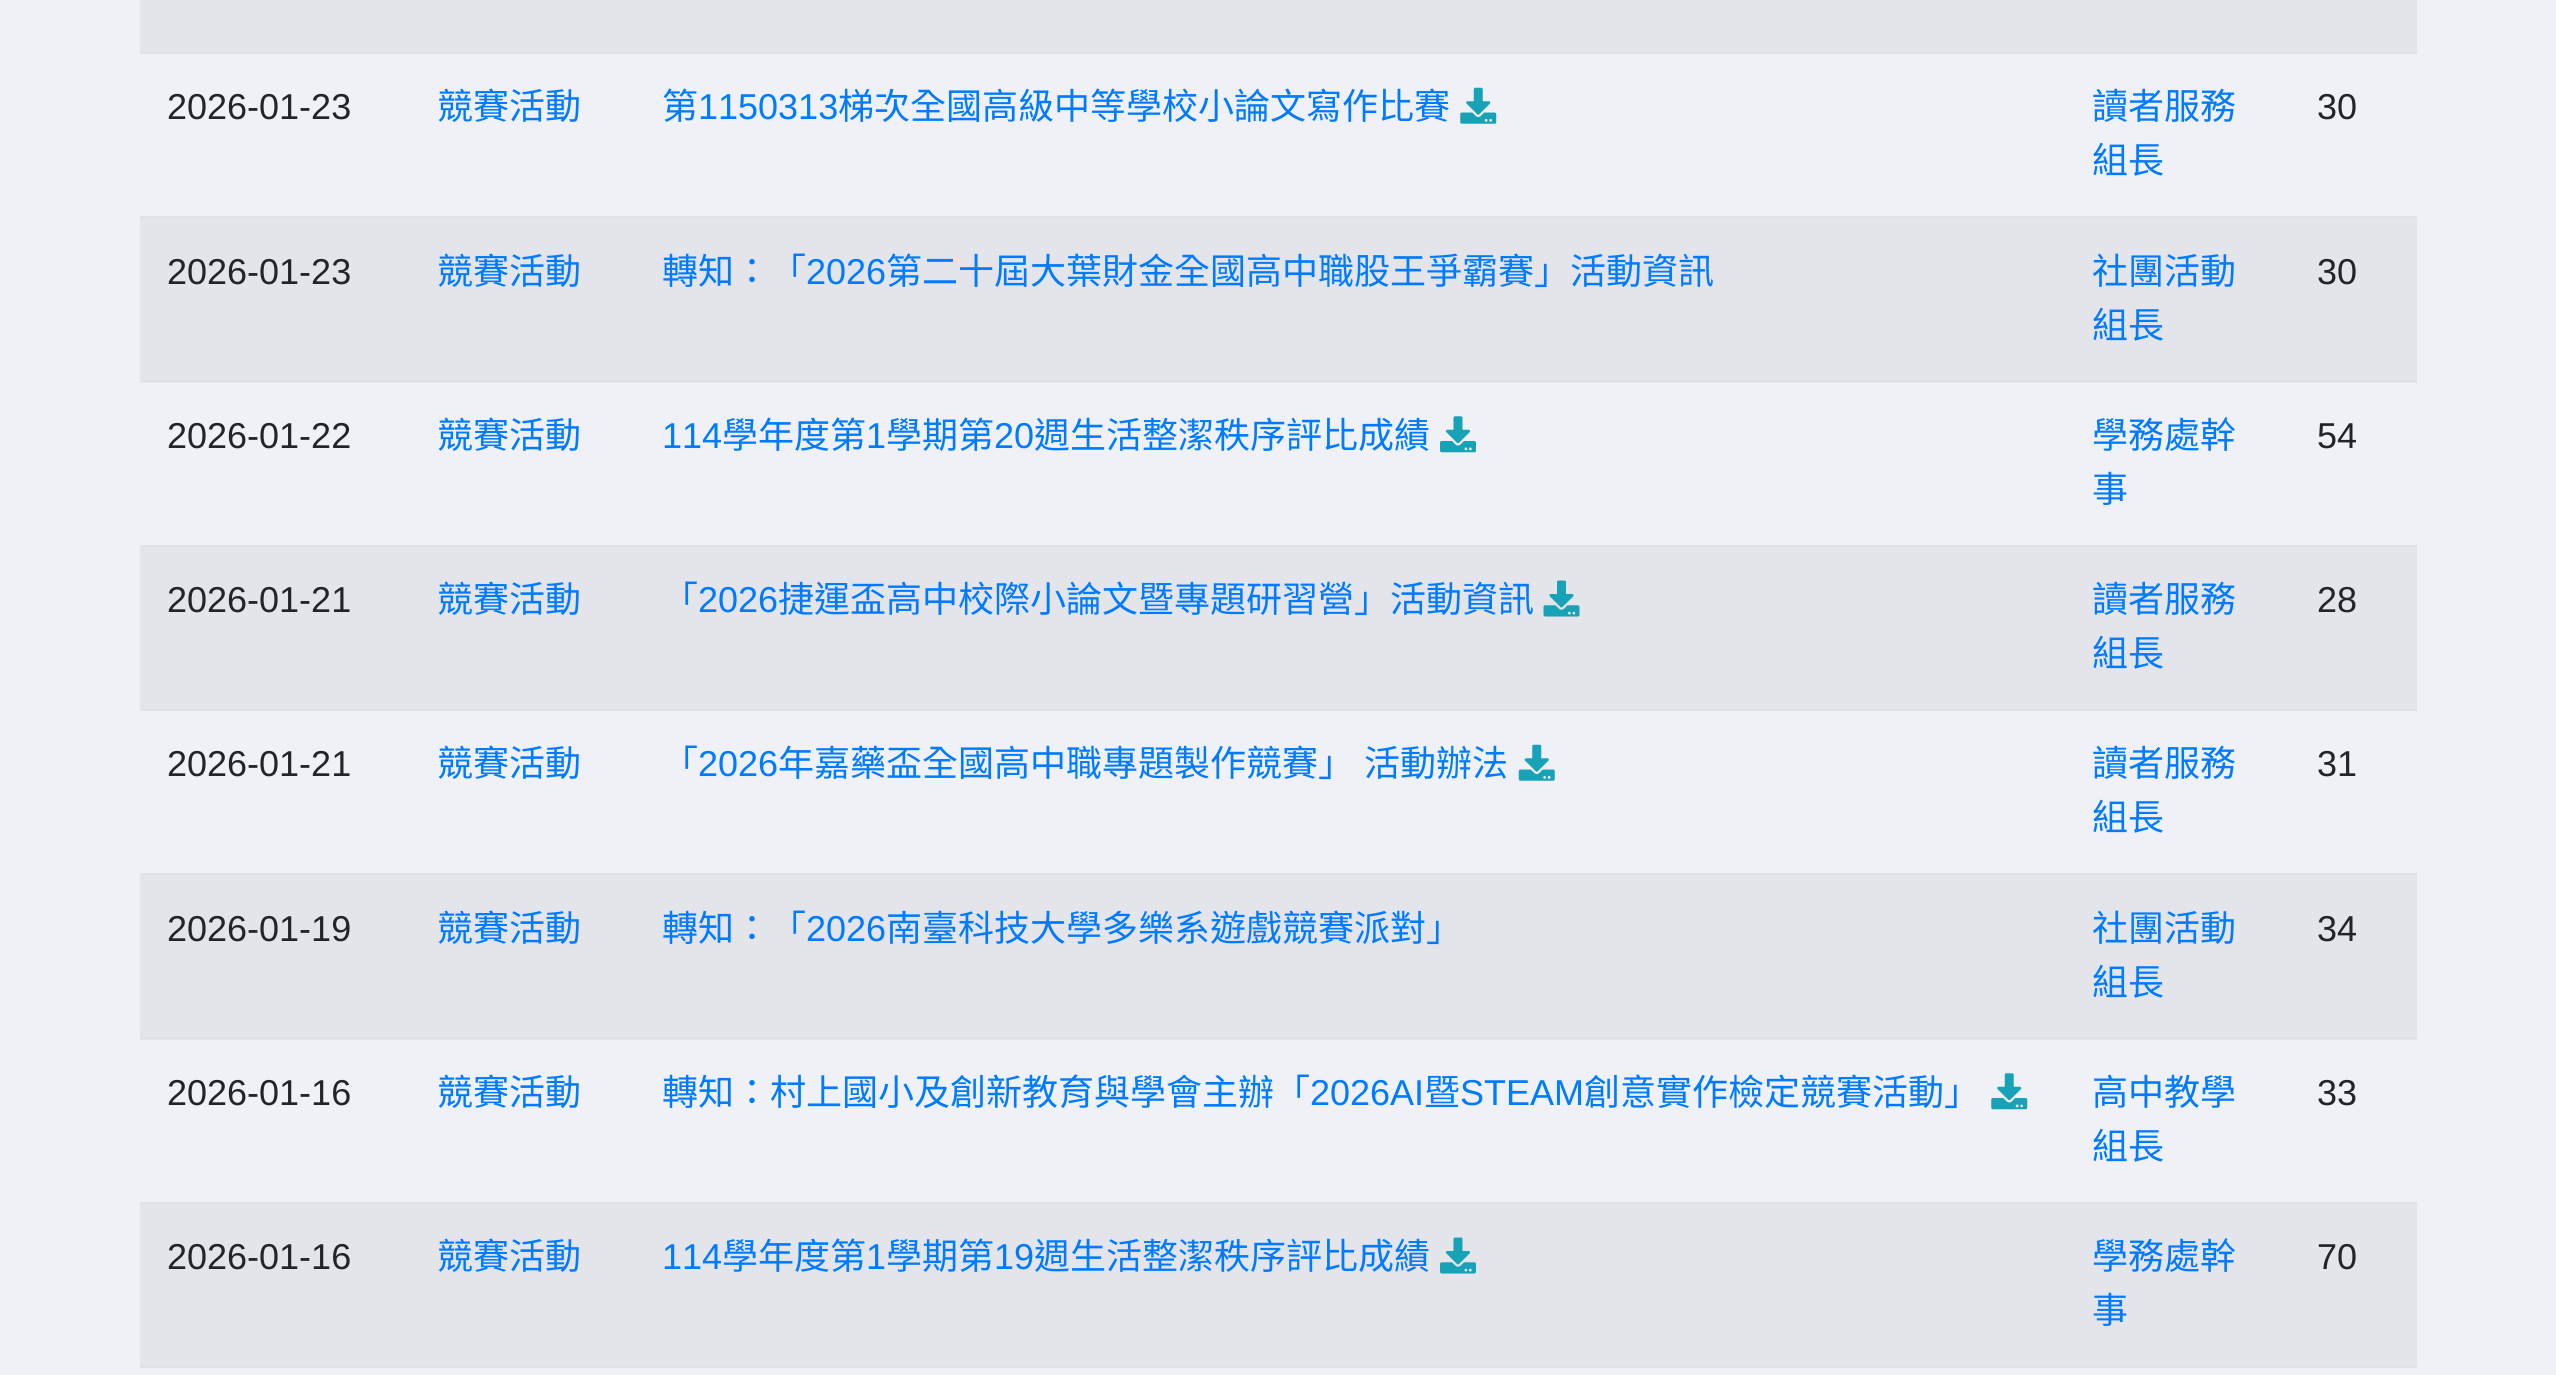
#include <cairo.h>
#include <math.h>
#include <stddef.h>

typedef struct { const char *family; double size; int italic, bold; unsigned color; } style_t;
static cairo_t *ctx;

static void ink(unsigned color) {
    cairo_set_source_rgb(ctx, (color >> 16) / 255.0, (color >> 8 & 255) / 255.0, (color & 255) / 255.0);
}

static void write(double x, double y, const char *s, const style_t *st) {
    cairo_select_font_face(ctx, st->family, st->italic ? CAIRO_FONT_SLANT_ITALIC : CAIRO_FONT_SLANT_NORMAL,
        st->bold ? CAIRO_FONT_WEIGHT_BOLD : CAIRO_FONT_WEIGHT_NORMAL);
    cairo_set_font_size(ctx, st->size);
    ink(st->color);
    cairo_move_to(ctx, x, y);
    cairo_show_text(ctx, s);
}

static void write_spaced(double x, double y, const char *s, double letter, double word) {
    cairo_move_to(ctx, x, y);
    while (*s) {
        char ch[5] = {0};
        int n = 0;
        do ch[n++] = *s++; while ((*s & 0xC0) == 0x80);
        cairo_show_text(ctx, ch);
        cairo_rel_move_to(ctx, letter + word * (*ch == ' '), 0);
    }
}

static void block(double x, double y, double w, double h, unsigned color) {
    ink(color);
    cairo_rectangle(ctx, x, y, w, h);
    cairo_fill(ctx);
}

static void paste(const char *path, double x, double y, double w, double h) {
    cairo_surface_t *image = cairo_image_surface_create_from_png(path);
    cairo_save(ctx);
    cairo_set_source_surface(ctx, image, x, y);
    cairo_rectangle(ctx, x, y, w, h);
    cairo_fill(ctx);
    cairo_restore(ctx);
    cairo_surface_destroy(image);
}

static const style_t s1 = {"Liberation Sans", 36, 0, 0, 0x212529};
static const style_t s2 = {"Noto Sans CJK TC", 36, 0, 0, 0x007bff};
static const style_t s3 = {"Liberation Sans", 36, 0, 0, 0x007bff};

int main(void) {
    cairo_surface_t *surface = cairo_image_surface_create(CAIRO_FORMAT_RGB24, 2556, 1375);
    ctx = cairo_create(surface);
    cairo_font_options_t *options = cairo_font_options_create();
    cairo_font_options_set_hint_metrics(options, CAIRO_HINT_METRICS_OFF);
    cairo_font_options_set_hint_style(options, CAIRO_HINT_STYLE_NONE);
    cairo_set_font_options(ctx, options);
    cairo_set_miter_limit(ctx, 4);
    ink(0xf0f1f6);
    cairo_paint(ctx);
    block(140, 0, 2277, 52, 0xe4e5ea);
    write(167, 119, "2026-01-23", &s1);
    write(437, 119, "競賽活動", &s2);
    write(662, 119, "第", &s2);
    write(698, 119, "1150313", &s3);
    write(838, 119, "梯次全國高級中等學校小論文寫作比賽", &s2);
    paste("pic1.png", 1460, 87, 37, 37);
    write(2092, 119, "讀者服務", &s2);
    write(2092, 173, "組長", &s2);
    block(140, 52, 2277, 2, 0xdee2e6);
    write(2317, 119, "30", &s1);
    block(140, 218, 2277, 165, 0xe4e4eb);
    write(167, 284, "2026-01-23", &s1);
    write(437, 284, "競賽活動", &s2);
    write(662, 284, "轉知：「", &s2);
    write(806, 284, "2026", &s3);
    write(886, 284, "第二十屆大葉財金全國高中職股王爭霸賽」活動資訊", &s2);
    write(2092, 284, "社團活動", &s2);
    write(2092, 338, "組長", &s2);
    block(140, 216, 2277, 2, 0xdee2e6);
    write(2317, 284, "30", &s1);
    write(167, 448, "2026-01-22", &s1);
    write(437, 448, "競賽活動", &s2);
    write(662, 448, "114", &s3);
    write(722, 448, "學年度第", &s2);
    write(866, 448, "1", &s3);
    write(886, 448, "學期第", &s2);
    write(994, 448, "20", &s3);
    write(1034, 448, "週生活整潔秩序評比成績", &s2);
    paste("pic2.png", 1440, 416, 36, 37);
    write(2092, 448, "學務處幹", &s2);
    write(2092, 502, "事", &s2);
    block(140, 380, 2277, 2, 0xdee2e6);
    write(2317, 448, "54", &s1);
    block(140, 547, 2277, 162, 0xe4e4eb);
    write(167, 612, "2026-01-21", &s1);
    write(437, 612, "競賽活動", &s2);
    write(662, 612, "「", &s2);
    write(698, 612, "2026", &s3);
    write(778, 612, "捷運盃高中校際小論文暨專題研習營」活動資訊", &s2);
    paste("pic3.png", 1543, 580, 37, 37);
    write(2092, 612, "讀者服務", &s2);
    write(2092, 666, "組長", &s2);
    block(140, 545, 2277, 2, 0xdee2e6);
    write(2317, 612, "28", &s1);
    write(167, 776, "2026-01-21", &s1);
    write(437, 776, "競賽活動", &s2);
    write(662, 776, "「", &s2);
    write(698, 776, "2026", &s3);
    cairo_select_font_face(ctx, "Noto Sans CJK TC", CAIRO_FONT_SLANT_NORMAL, CAIRO_FONT_WEIGHT_NORMAL);
    write_spaced(778, 776, "年嘉藥盃全國高中職專題製作競賽」 活動辦法", 0, 2);
    paste("pic4.png", 1518, 744, 37, 37);
    write(2092, 776, "讀者服務", &s2);
    write(2092, 830, "組長", &s2);
    block(140, 709, 2277, 2, 0xdee2e6);
    write(2317, 776, "31", &s1);
    block(140, 875, 2277, 165, 0xe4e4eb);
    write(167, 941, "2026-01-19", &s1);
    write(437, 941, "競賽活動", &s2);
    write(662, 941, "轉知：「", &s2);
    write(806, 941, "2026", &s3);
    write(886, 941, "南臺科技大學多樂系遊戲競賽派對」", &s2);
    write(2092, 941, "社團活動", &s2);
    write(2092, 995, "組長", &s2);
    block(140, 873, 2277, 2, 0xdee2e6);
    write(2317, 941, "34", &s1);
    write(167, 1105, "2026-01-16", &s1);
    write(437, 1105, "競賽活動", &s2);
    write(662, 1105, "轉知：村上國小及創新教育與學會主辦「", &s2);
    write(1310, 1105, "2026AI", &s3);
    write(1424, 1105, "暨", &s2);
    write(1460, 1105, "STEAM", &s3);
    write(1584, 1105, "創意實作檢定競賽活動」", &s2);
    paste("pic5.png", 1991, 1073, 37, 37);
    write(2092, 1105, "高中教學", &s2);
    write(2092, 1159, "組長", &s2);
    block(140, 1037, 2277, 2, 0xdee2e6);
    write(2317, 1105, "33", &s1);
    block(140, 1204, 2277, 162, 0xe4e4eb);
    write(167, 1269, "2026-01-16", &s1);
    write(437, 1269, "競賽活動", &s2);
    write(662, 1269, "114", &s3);
    write(722, 1269, "學年度第", &s2);
    write(866, 1269, "1", &s3);
    write(886, 1269, "學期第", &s2);
    write(994, 1269, "19", &s3);
    write(1034, 1269, "週生活整潔秩序評比成績", &s2);
    paste("pic6.png", 1440, 1237, 36, 37);
    write(2092, 1269, "學務處幹", &s2);
    write(2092, 1323, "事", &s2);
    block(140, 1202, 2277, 2, 0xdee2e6);
    write(2317, 1269, "70", &s1);
    block(140, 1366, 2277, 2, 0xdee2e6);
    cairo_surface_write_to_png(surface, "screenshot.png");
    cairo_font_options_destroy(options);
    cairo_destroy(ctx);
    cairo_surface_destroy(surface);
    return 0;
}
